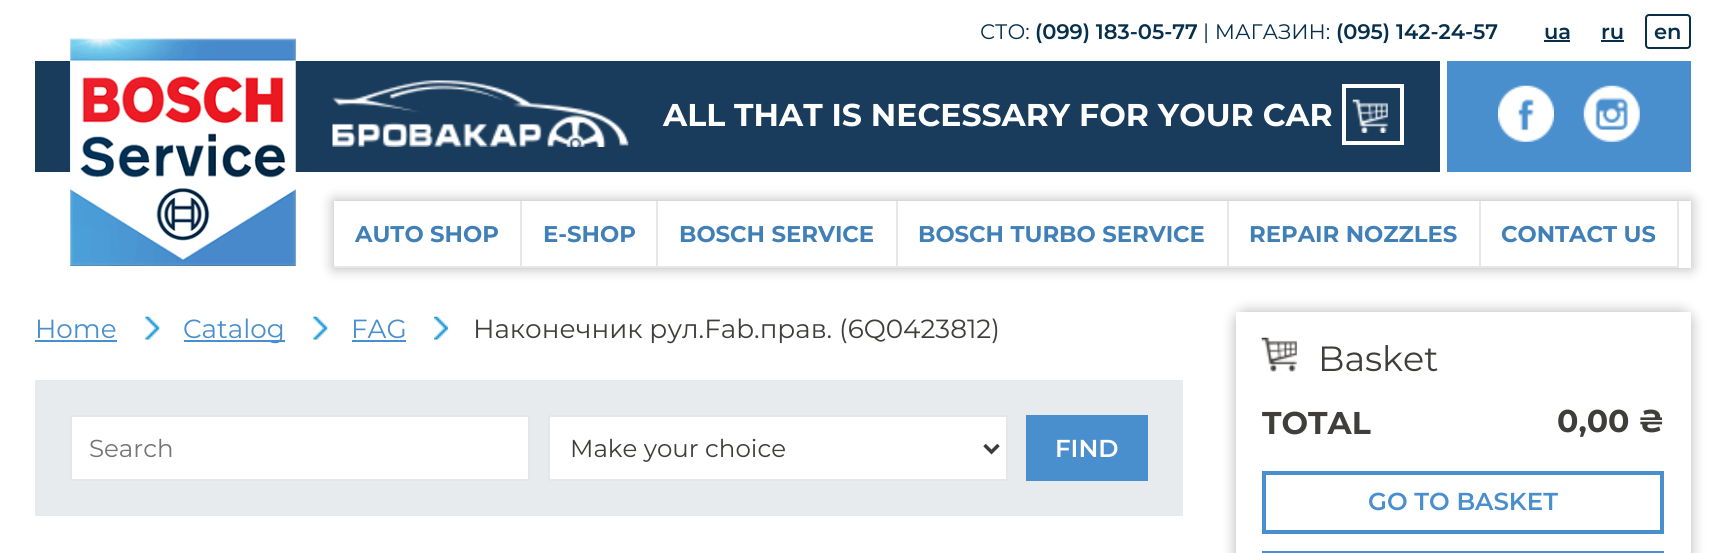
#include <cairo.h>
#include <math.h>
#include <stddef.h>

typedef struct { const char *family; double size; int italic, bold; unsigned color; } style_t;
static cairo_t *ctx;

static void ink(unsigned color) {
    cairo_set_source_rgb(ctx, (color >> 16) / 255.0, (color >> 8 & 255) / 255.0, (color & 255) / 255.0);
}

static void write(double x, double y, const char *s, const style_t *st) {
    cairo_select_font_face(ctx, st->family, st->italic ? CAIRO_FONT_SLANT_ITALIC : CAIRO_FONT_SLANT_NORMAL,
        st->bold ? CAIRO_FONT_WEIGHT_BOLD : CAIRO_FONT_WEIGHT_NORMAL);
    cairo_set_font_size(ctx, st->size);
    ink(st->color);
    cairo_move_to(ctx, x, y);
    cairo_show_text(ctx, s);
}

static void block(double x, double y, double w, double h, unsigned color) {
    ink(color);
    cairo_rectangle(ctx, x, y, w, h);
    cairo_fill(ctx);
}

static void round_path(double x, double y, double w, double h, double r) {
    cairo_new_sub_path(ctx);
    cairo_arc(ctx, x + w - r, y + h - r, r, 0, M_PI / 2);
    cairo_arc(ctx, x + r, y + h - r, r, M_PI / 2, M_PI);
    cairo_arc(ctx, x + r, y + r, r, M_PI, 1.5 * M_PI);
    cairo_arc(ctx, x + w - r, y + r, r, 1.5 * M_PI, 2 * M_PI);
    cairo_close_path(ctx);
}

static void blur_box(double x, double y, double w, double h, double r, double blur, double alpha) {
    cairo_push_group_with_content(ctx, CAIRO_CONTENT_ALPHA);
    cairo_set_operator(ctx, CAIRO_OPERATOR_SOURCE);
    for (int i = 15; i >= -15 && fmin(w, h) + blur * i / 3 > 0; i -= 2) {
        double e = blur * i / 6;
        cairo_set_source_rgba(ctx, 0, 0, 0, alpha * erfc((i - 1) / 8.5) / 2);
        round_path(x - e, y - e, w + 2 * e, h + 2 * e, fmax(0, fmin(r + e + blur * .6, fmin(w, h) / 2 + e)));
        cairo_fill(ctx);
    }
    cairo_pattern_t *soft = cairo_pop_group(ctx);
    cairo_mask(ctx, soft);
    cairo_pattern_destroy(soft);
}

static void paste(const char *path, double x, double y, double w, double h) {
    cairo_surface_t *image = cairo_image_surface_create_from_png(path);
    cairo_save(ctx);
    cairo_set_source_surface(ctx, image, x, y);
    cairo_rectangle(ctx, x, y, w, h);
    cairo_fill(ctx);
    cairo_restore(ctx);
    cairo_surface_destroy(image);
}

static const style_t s1 = {"Montserrat", 21, 0, 0, 0x062f4c};
static const style_t s2 = {"Montserrat SemiBold", 21, 0, 0, 0x062f4c};
static const style_t s3 = {"Montserrat", 31.5, 0, 1, 0xffffff};
static const style_t s4 = {"Montserrat", 22.75, 0, 1, 0x417fb7};
static const style_t s5 = {"Montserrat", 26.25, 0, 0, 0x498fce};
static const style_t s6 = {"Montserrat", 26.25, 0, 0, 0x3f3e3a};
static const style_t s7 = {"Montserrat", 24.5, 0, 0, 0x757575};
static const style_t s8 = {"Montserrat", 24.5, 0, 0, 0x3f3e3a};
static const style_t s9 = {"Montserrat SemiBold", 24.5, 0, 0, 0xffffff};
static const style_t s10 = {"Montserrat", 35, 0, 0, 0x3f3e3a};
static const style_t s11 = {"Montserrat", 31.5, 0, 1, 0x3f3e3a};
static const style_t s12 = {"Montserrat SemiBold", 24.5, 0, 0, 0x498fce};

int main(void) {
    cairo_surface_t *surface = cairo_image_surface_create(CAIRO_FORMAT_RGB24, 1724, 553);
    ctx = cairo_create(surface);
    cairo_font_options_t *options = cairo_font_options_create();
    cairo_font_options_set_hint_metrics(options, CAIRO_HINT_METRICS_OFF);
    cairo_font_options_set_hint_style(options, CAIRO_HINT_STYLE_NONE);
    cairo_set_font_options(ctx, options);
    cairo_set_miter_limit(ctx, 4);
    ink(0xffffff);
    cairo_paint(ctx);
    write(980, 39, "СТО:", &s1);
    write(1035, 39, "(099) 183-05-77", &s2);
    write(1203, 39, "| МАГАЗИН:", &s1);
    write(1336, 39, "(095) 142-24-57", &s2);
    write(1544, 39, "ua", &s2);
    block(1544, 40, 26, 2, 0x062f4c);
    write(1601, 39, "ru", &s2);
    block(1601, 40, 23, 2, 0x062f4c);
    round_path(1646, 15, 44, 33, 3);
    cairo_stroke(ctx);
    write(1654, 39, "en", &s2);
    block(35, 61, 1405, 111, 0x193c5c);
    paste("pic1.png", 70, 38, 226, 228);
    paste("pic2.png", 332, 80, 297, 67);
    write(663, 126, "ALL THAT IS NECESSARY FOR YOUR CAR", &s3);
    paste("pic3.png", 1352, 99, 36, 34);
    cairo_rectangle(ctx, 1344, 86, 58, 57);
    cairo_set_line_width(ctx, 4);
    cairo_stroke(ctx);
    block(1447, 61, 244, 111, 0x498fce);
    paste("pic4.png", 1498, 85, 56, 57);
    paste("pic5.png", 1583, 85, 57, 57);
    ink(0x000000);
    blur_box(334, 201, 1357, 67, 0, 7, 0.3);
    block(334, 201, 1357, 67, 0xffffff);
    block(520, 201, 2, 67, 0xe7e7e7);
    block(334, 266, 188, 2, 0xe7e7e7);
    write(355, 242, "AUTO SHOP", &s4);
    block(656, 201, 2, 67, 0xe7e7e7);
    block(522, 266, 136, 2, 0xe7e7e7);
    write(543, 242, "E-SHOP", &s4);
    block(896, 201, 2, 67, 0xe7e7e7);
    block(658, 266, 240, 2, 0xe7e7e7);
    write(679, 242, "BOSCH SERVICE", &s4);
    block(1227, 201, 2, 67, 0xe7e7e7);
    block(898, 266, 331, 2, 0xe7e7e7);
    write(918, 242, "BOSCH TURBO SERVICE", &s4);
    block(1479, 201, 2, 67, 0xe7e7e7);
    block(1229, 266, 252, 2, 0xe7e7e7);
    write(1249, 242, "REPAIR NOZZLES", &s4);
    block(1677, 201, 2, 67, 0xe7e7e7);
    block(1481, 266, 197, 2, 0xe7e7e7);
    write(1501, 242, "CONTACT US", &s4);
    paste("pic6.png", 145, 316, 15, 24);
    write(35, 338, "Home", &s5);
    block(35, 340, 82, 2, 0x498fce);
    paste("pic6.png", 313, 316, 15, 24);
    block(184, 340, 101, 2, 0x498fce);
    write(183, 338, "Catalog", &s5);
    paste("pic7.png", 434, 316, 14, 24);
    write(351, 338, "FAG", &s5);
    block(352, 340, 54, 2, 0x498fce);
    write(473, 338, "Наконечник рул.Fab.прав. (6Q0423812)", &s6);
    block(35, 380, 1148, 136, 0xe8ebee);
    ink(0xffffff);
    cairo_rectangle(ctx, 71, 416, 458, 64);
    cairo_fill_preserve(ctx);
    ink(0xe6e6e8);
    cairo_set_line_width(ctx, 2);
    cairo_stroke(ctx);
    write(89, 457, "Search", &s7);
    ink(0xffffff);
    cairo_rectangle(ctx, 549, 416, 458, 64);
    cairo_fill_preserve(ctx);
    ink(0xe6e6e8);
    cairo_stroke(ctx);
    cairo_new_path(ctx);
    cairo_move_to(ctx, 984.5, 445);
    cairo_line_to(ctx, 991.5, 452);
    cairo_line_to(ctx, 998.5, 445);
    ink(0x3d3c3b);
    cairo_set_line_width(ctx, 3.5);
    cairo_stroke(ctx);
    write(570, 457, "Make your choice", &s8);
    block(1026, 415, 122, 66, 0x498fce);
    write(1055, 457, "FIND", &s9);
    cairo_save(ctx);
    cairo_set_fill_rule(ctx, CAIRO_FILL_RULE_EVEN_ODD);
    cairo_new_path(ctx);
    cairo_move_to(ctx, 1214, 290);
    cairo_line_to(ctx, 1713, 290);
    cairo_line_to(ctx, 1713, 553);
    cairo_line_to(ctx, 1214, 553);
    cairo_close_path(ctx);
    cairo_move_to(ctx, 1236, 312);
    cairo_line_to(ctx, 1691, 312);
    cairo_line_to(ctx, 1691, 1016);
    cairo_curve_to(ctx, 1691, 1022, 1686, 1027, 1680, 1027);
    cairo_line_to(ctx, 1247, 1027);
    cairo_curve_to(ctx, 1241, 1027, 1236, 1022, 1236, 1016);
    cairo_close_path(ctx);
    cairo_clip(ctx);
    ink(0x000000);
    blur_box(1236, 312, 455, 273, 11, 7, 0.3);
    cairo_restore(ctx);
    paste("pic8.png", 1261, 337, 36, 35);
    write(1318, 371, "Basket", &s10);
    write(1262, 434, "TOTAL", &s11);
    write(1557, 432, "0,00 ₴", &s11);
    cairo_rectangle(ctx, 1264, 473, 398, 59);
    ink(0x498fce);
    cairo_set_line_width(ctx, 4);
    cairo_stroke(ctx);
    write(1368, 510, "GO TO BASKET", &s12);
    block(1262, 551, 402, 2, 0x498fce);
    cairo_surface_write_to_png(surface, "screenshot.png");
    cairo_font_options_destroy(options);
    cairo_destroy(ctx);
    cairo_surface_destroy(surface);
    return 0;
}
